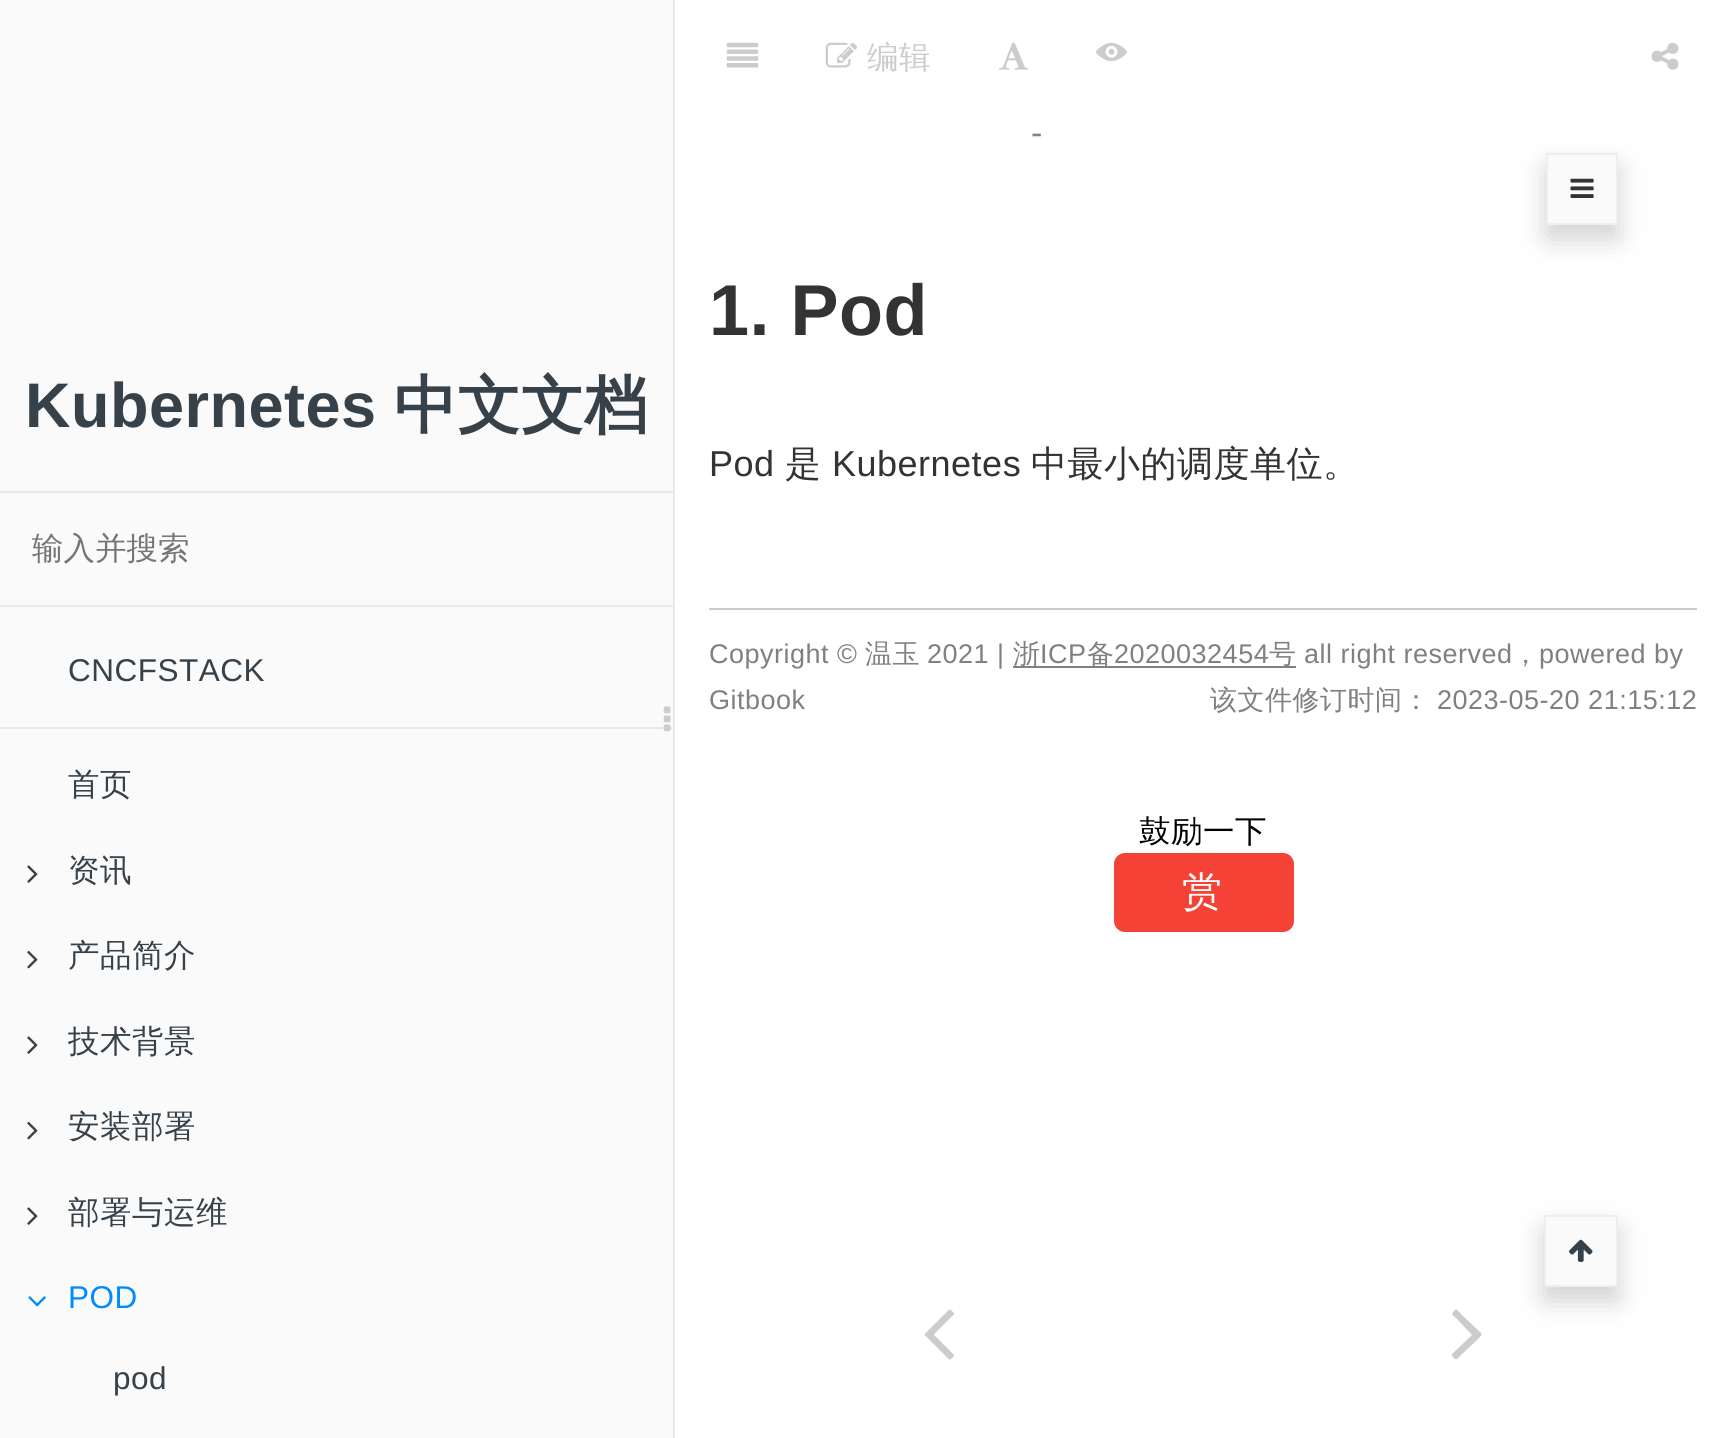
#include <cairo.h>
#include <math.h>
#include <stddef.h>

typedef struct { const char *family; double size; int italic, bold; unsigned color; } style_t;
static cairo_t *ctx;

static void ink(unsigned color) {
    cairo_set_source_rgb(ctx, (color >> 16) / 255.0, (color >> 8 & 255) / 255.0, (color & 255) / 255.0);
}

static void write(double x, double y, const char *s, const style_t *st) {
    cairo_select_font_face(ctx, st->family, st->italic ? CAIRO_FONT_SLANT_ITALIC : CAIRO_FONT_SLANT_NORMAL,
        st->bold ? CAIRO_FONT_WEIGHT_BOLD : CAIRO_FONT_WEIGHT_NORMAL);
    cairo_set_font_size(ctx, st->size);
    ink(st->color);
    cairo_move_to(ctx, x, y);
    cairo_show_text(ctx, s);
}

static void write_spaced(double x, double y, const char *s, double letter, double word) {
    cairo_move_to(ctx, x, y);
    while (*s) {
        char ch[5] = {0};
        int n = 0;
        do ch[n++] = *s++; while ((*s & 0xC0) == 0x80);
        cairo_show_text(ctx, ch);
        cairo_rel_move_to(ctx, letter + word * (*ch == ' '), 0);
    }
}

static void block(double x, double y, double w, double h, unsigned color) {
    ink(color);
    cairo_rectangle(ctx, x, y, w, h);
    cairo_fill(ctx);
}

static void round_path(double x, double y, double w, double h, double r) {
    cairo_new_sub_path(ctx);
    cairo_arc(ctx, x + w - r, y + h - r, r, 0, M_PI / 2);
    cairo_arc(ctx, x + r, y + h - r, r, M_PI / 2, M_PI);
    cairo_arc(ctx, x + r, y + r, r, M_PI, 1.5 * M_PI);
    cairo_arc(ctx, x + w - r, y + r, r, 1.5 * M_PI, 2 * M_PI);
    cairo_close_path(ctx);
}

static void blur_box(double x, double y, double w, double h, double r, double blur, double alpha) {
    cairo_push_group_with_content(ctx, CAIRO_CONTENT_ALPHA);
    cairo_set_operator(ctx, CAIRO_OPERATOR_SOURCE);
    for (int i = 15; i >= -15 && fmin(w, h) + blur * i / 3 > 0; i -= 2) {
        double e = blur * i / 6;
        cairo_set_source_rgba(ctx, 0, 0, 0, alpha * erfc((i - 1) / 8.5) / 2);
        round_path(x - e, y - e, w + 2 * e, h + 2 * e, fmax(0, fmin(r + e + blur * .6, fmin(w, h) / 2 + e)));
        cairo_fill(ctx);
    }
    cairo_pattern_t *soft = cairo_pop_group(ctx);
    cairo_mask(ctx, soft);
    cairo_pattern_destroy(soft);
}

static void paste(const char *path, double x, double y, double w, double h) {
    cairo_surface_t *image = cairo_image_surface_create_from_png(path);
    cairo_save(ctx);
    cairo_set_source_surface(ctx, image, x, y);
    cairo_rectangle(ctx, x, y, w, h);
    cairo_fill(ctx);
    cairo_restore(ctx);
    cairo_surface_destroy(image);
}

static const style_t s1 = {"WenQuanYi Zen Hei Medium", 31.5, 0, 0, 0x757575};
static const style_t s2 = {"WenQuanYi Zen Hei Medium", 40, 0, 0, 0xffffff};

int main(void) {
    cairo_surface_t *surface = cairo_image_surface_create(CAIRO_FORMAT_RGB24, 1729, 1438);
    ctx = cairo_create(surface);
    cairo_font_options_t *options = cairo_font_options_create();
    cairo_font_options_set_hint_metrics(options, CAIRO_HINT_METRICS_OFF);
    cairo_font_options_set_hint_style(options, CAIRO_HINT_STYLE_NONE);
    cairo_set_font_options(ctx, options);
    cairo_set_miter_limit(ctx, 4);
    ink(0xffffff);
    cairo_paint(ctx);
    block(0, 0, 673, 1438, 0xfafafa);
    block(673, 0, 2, 1438, 0xe9e9e9);
    cairo_select_font_face(ctx, "Liberation Sans", CAIRO_FONT_SLANT_NORMAL, CAIRO_FONT_WEIGHT_BOLD);
    cairo_set_font_size(ctx, 63);
    ink(0x364149);
    write_spaced(25, 427, "Kubernetes", 0.5, 0);
    cairo_select_font_face(ctx, "WenQuanYi Zen Hei", CAIRO_FONT_SLANT_NORMAL, CAIRO_FONT_WEIGHT_BOLD);
    write_spaced(394, 427, "中文文档", 0.5, 0);
    block(0, 491, 673, 2, 0xe9e9e9);
    block(0, 605, 673, 2, 0xe9e9e9);
    cairo_save(ctx);
    cairo_rectangle(ctx, 32, 531, 609, 41);
    cairo_clip(ctx);
    write(32, 559, "输入并搜索", &s1);
    cairo_restore(ctx);
    cairo_select_font_face(ctx, "Liberation Sans", CAIRO_FONT_SLANT_NORMAL, CAIRO_FONT_WEIGHT_NORMAL);
    cairo_set_font_size(ctx, 31.5);
    ink(0x364149);
    write_spaced(68, 681, "CNCFSTACK", 0.5, 0);
    block(0, 727, 673, 2, 0xe9e9e9);
    cairo_select_font_face(ctx, "WenQuanYi Zen Hei Medium", CAIRO_FONT_SLANT_NORMAL, CAIRO_FONT_WEIGHT_NORMAL);
    ink(0x364149);
    write_spaced(68, 795, "首页", 0.5, 0);
    paste("pic1.png", 27, 865, 11, 18);
    write_spaced(68, 881, "资讯", 0.5, 0);
    paste("pic2.png", 27, 950, 11, 19);
    write_spaced(68, 966, "产品简介", 0.5, 0);
    paste("pic1.png", 27, 1036, 11, 18);
    write_spaced(68, 1052, "技术背景", 0.5, 0);
    paste("pic2.png", 27, 1121, 11, 19);
    write_spaced(68, 1137, "安装部署", 0.5, 0);
    paste("pic1.png", 27, 1207, 11, 18);
    write_spaced(68, 1223, "部署与运维", 0.5, 0);
    paste("pic3.png", 28, 1296, 18, 11);
    cairo_select_font_face(ctx, "Liberation Sans", CAIRO_FONT_SLANT_NORMAL, CAIRO_FONT_WEIGHT_NORMAL);
    ink(0x008cff);
    write_spaced(68, 1308, "POD", 0.5, 0);
    ink(0x364149);
    write_spaced(113, 1389, "pod", 0.5, 0);
    paste("pic4.png", 663, 706, 8, 26);
    paste("pic5.png", 726, 42, 33, 26);
    paste("pic6.png", 825, 42, 32, 26);
    cairo_select_font_face(ctx, "WenQuanYi Zen Hei Medium", CAIRO_FONT_SLANT_NORMAL, CAIRO_FONT_WEIGHT_NORMAL);
    ink(0xcccccc);
    write_spaced(867, 68, "编辑", 0.5, 0);
    paste("pic7.png", 999, 42, 30, 28);
    paste("pic8.png", 1651, 42, 28, 28);
    paste("pic9.png", 1096, 42, 31, 19);
    cairo_select_font_face(ctx, "Liberation Sans", CAIRO_FONT_SLANT_NORMAL, CAIRO_FONT_WEIGHT_NORMAL);
    cairo_set_font_size(ctx, 34);
    ink(0x7e888b);
    write_spaced(1031, 144, "-", 0.5, 0);
    cairo_save(ctx);
    cairo_set_fill_rule(ctx, CAIRO_FILL_RULE_EVEN_ODD);
    cairo_new_path(ctx);
    cairo_move_to(ctx, 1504, 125);
    cairo_line_to(ctx, 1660, 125);
    cairo_line_to(ctx, 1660, 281);
    cairo_line_to(ctx, 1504, 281);
    cairo_close_path(ctx);
    cairo_move_to(ctx, 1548, 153);
    cairo_line_to(ctx, 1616, 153);
    cairo_curve_to(ctx, 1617, 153, 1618, 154, 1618, 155);
    cairo_line_to(ctx, 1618, 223);
    cairo_curve_to(ctx, 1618, 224, 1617, 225, 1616, 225);
    cairo_line_to(ctx, 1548, 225);
    cairo_curve_to(ctx, 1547, 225, 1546, 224, 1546, 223);
    cairo_line_to(ctx, 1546, 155);
    cairo_curve_to(ctx, 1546, 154, 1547, 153, 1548, 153);
    cairo_close_path(ctx);
    cairo_clip(ctx);
    ink(0x000000);
    blur_box(1546, 167, 72, 72, 2, 13.5, 0.18);
    cairo_restore(ctx);
    block(1548, 155, 68, 68, 0xfafafa);
    cairo_rectangle(ctx, 1547, 154, 70, 70);
    cairo_set_source_rgba(ctx, 0, 0, 0, 0.07);
    cairo_stroke(ctx);
    paste("pic10.png", 1570, 178, 24, 20);
    cairo_select_font_face(ctx, "Liberation Sans", CAIRO_FONT_SLANT_NORMAL, CAIRO_FONT_WEIGHT_BOLD);
    cairo_set_font_size(ctx, 72);
    ink(0x333333);
    write_spaced(709, 335, "1. Pod", 0.5, 0);
    cairo_select_font_face(ctx, "Liberation Sans", CAIRO_FONT_SLANT_NORMAL, CAIRO_FONT_WEIGHT_NORMAL);
    cairo_set_font_size(ctx, 36);
    write_spaced(709, 476, "Pod", 0.5, 0);
    cairo_select_font_face(ctx, "WenQuanYi Zen Hei Medium", CAIRO_FONT_SLANT_NORMAL, CAIRO_FONT_WEIGHT_NORMAL);
    write_spaced(785, 476, "是", 0.5, 0);
    cairo_select_font_face(ctx, "Liberation Sans", CAIRO_FONT_SLANT_NORMAL, CAIRO_FONT_WEIGHT_NORMAL);
    write_spaced(832, 476, "Kubernetes", 0.5, 0);
    cairo_select_font_face(ctx, "WenQuanYi Zen Hei Medium", CAIRO_FONT_SLANT_NORMAL, CAIRO_FONT_WEIGHT_NORMAL);
    write_spaced(1031, 476, "中最小的调度单位。", 0.5, 0);
    block(709, 608, 988, 2, 0xcccccc);
    cairo_select_font_face(ctx, "Liberation Sans", CAIRO_FONT_SLANT_NORMAL, CAIRO_FONT_WEIGHT_NORMAL);
    cairo_set_font_size(ctx, 27);
    ink(0x808080);
    write_spaced(709, 663, "Copyright ©", 0.5, 0);
    cairo_select_font_face(ctx, "WenQuanYi Zen Hei Medium", CAIRO_FONT_SLANT_NORMAL, CAIRO_FONT_WEIGHT_NORMAL);
    write_spaced(865, 663, "温玉", 0.5, 0);
    cairo_select_font_face(ctx, "Liberation Sans", CAIRO_FONT_SLANT_NORMAL, CAIRO_FONT_WEIGHT_NORMAL);
    write_spaced(927, 663, "2021 |", 0.5, 0);
    block(1013, 666, 283, 2, 0x808080);
    cairo_select_font_face(ctx, "WenQuanYi Zen Hei Medium", CAIRO_FONT_SLANT_NORMAL, CAIRO_FONT_WEIGHT_NORMAL);
    write_spaced(1013, 663, "浙", 0.5, 0);
    cairo_select_font_face(ctx, "Liberation Sans", CAIRO_FONT_SLANT_NORMAL, CAIRO_FONT_WEIGHT_NORMAL);
    write_spaced(1040, 663, "ICP", 0.5, 0);
    cairo_select_font_face(ctx, "WenQuanYi Zen Hei Medium", CAIRO_FONT_SLANT_NORMAL, CAIRO_FONT_WEIGHT_NORMAL);
    write_spaced(1087, 663, "备", 0.5, 0);
    cairo_select_font_face(ctx, "Liberation Sans", CAIRO_FONT_SLANT_NORMAL, CAIRO_FONT_WEIGHT_NORMAL);
    write_spaced(1114, 663, "2020032454", 0.5, 0);
    cairo_select_font_face(ctx, "WenQuanYi Zen Hei Medium", CAIRO_FONT_SLANT_NORMAL, CAIRO_FONT_WEIGHT_NORMAL);
    write_spaced(1269, 663, "号", 0.5, 0);
    cairo_select_font_face(ctx, "Liberation Sans", CAIRO_FONT_SLANT_NORMAL, CAIRO_FONT_WEIGHT_NORMAL);
    write_spaced(1304, 663, "all right reserved", 0.5, 0);
    cairo_select_font_face(ctx, "WenQuanYi Zen Hei Medium", CAIRO_FONT_SLANT_NORMAL, CAIRO_FONT_WEIGHT_NORMAL);
    write_spaced(1512, 663, "，", 0.5, 0);
    cairo_select_font_face(ctx, "Liberation Sans", CAIRO_FONT_SLANT_NORMAL, CAIRO_FONT_WEIGHT_NORMAL);
    write_spaced(1539, 663, "powered by", 0.5, 0);
    write_spaced(709, 709, "Gitbook", 0.5, 0);
    cairo_select_font_face(ctx, "WenQuanYi Zen Hei Medium", CAIRO_FONT_SLANT_NORMAL, CAIRO_FONT_WEIGHT_NORMAL);
    write_spaced(1210, 709, "该文件修订时间：", 0.5, 0);
    cairo_select_font_face(ctx, "Liberation Sans", CAIRO_FONT_SLANT_NORMAL, CAIRO_FONT_WEIGHT_NORMAL);
    write_spaced(1437, 709, "2023-05-20 21:15:12", 0.5, 0);
    cairo_save(ctx);
    cairo_set_fill_rule(ctx, CAIRO_FILL_RULE_EVEN_ODD);
    cairo_new_path(ctx);
    cairo_move_to(ctx, 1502, 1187);
    cairo_line_to(ctx, 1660, 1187);
    cairo_line_to(ctx, 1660, 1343);
    cairo_line_to(ctx, 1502, 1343);
    cairo_close_path(ctx);
    cairo_move_to(ctx, 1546, 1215);
    cairo_line_to(ctx, 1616, 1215);
    cairo_curve_to(ctx, 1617, 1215, 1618, 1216, 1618, 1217);
    cairo_line_to(ctx, 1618, 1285);
    cairo_curve_to(ctx, 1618, 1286, 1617, 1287, 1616, 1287);
    cairo_line_to(ctx, 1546, 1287);
    cairo_curve_to(ctx, 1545, 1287, 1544, 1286, 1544, 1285);
    cairo_line_to(ctx, 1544, 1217);
    cairo_curve_to(ctx, 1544, 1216, 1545, 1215, 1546, 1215);
    cairo_close_path(ctx);
    cairo_clip(ctx);
    ink(0x000000);
    blur_box(1544, 1229, 74, 72, 2, 13.5, 0.18);
    cairo_restore(ctx);
    block(1546, 1217, 70, 68, 0xfafafa);
    cairo_rectangle(ctx, 1545, 1216, 72, 70);
    cairo_set_source_rgba(ctx, 0, 0, 0, 0.07);
    cairo_stroke(ctx);
    paste("pic11.png", 1569, 1239, 24, 23);
    cairo_select_font_face(ctx, "WenQuanYi Zen Hei Medium", CAIRO_FONT_SLANT_NORMAL, CAIRO_FONT_WEIGHT_NORMAL);
    cairo_set_font_size(ctx, 31.5);
    ink(0x000000);
    write_spaced(1139, 842, "鼓励一下", 0.5, 0);
    ink(0xefefef);
    cairo_new_path(ctx);
    cairo_move_to(ctx, 1204, 852.5);
    cairo_curve_to(ctx, 1253.5, 852.5, 1294, 870, 1294, 892);
    cairo_curve_to(ctx, 1294, 914, 1253.5, 931.5, 1204, 931.5);
    cairo_curve_to(ctx, 1154.5, 931.5, 1114, 914, 1114, 892);
    cairo_curve_to(ctx, 1114, 870, 1154.5, 852.5, 1204, 852.5);
    cairo_close_path(ctx);
    cairo_fill(ctx);
    ink(0xf44336);
    round_path(1114, 853, 180, 79, 11);
    cairo_fill(ctx);
    write(1182, 905, "赏", &s2);
    paste("pic12.png", 924, 1309, 30, 51);
    ink(0xcccccc);
    cairo_new_path(ctx);
    cairo_move_to(ctx, 1481, 1333);
    cairo_curve_to(ctx, 1483, 1336, 1477, 1339, 1477, 1340);
    cairo_line_to(ctx, 1461, 1355);
    cairo_curve_to(ctx, 1461, 1355, 1457, 1361, 1455, 1359);
    cairo_curve_to(ctx, 1454, 1358, 1451, 1356, 1452, 1354);
    cairo_line_to(ctx, 1472, 1335);
    cairo_line_to(ctx, 1456, 1318);
    cairo_curve_to(ctx, 1452, 1315, 1451, 1314, 1454, 1311);
    cairo_curve_to(ctx, 1457, 1308, 1457, 1310, 1461, 1314);
    cairo_close_path(ctx);
    cairo_fill(ctx);
    cairo_surface_write_to_png(surface, "screenshot.png");
    cairo_font_options_destroy(options);
    cairo_destroy(ctx);
    cairo_surface_destroy(surface);
    return 0;
}
